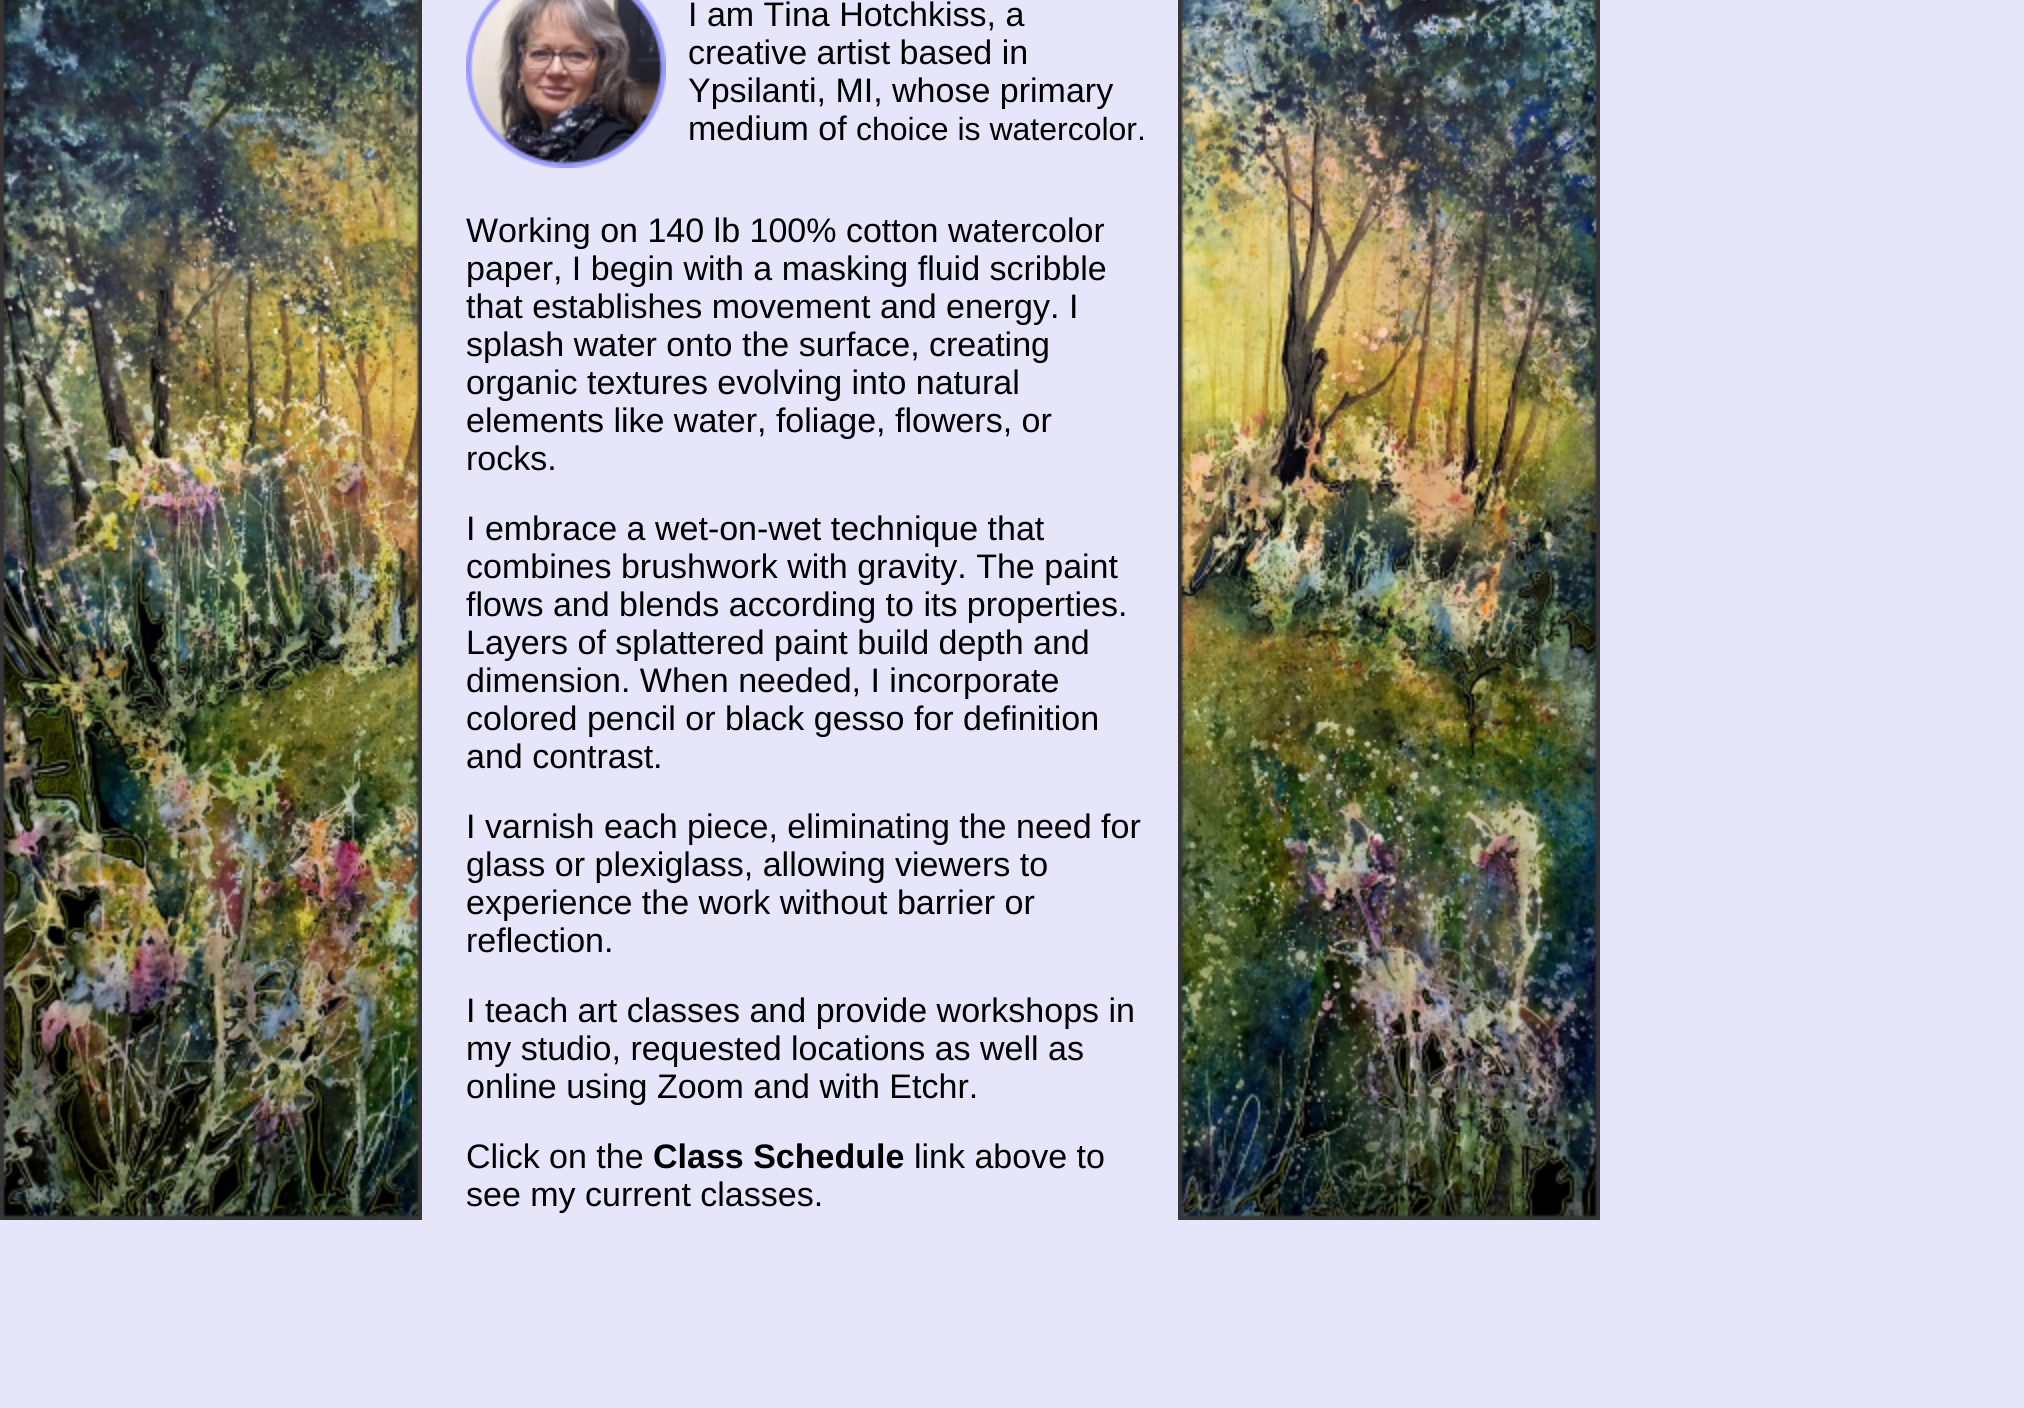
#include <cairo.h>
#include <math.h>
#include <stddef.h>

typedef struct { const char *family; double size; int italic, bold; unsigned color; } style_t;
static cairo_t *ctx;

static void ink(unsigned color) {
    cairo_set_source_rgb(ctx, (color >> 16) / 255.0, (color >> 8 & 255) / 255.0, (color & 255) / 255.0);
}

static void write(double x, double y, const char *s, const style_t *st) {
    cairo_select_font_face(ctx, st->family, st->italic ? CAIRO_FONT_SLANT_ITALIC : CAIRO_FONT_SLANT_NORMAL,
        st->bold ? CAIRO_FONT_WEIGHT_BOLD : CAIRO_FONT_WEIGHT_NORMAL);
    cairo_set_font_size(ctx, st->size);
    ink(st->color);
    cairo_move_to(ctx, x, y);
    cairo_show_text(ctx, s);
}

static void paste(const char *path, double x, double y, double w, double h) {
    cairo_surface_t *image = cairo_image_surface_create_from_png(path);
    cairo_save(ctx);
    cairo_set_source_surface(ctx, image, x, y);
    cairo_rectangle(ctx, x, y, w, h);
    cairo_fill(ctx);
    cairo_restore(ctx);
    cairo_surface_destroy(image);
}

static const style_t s1 = {"Liberation Sans", 34, 0, 0, 0x000000};
static const style_t s2 = {"Liberation Sans", 32, 0, 0, 0x000000};
static const style_t s3 = {"Liberation Sans", 34, 0, 1, 0x000000};

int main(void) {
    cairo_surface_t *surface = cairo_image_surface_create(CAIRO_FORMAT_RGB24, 2024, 1408);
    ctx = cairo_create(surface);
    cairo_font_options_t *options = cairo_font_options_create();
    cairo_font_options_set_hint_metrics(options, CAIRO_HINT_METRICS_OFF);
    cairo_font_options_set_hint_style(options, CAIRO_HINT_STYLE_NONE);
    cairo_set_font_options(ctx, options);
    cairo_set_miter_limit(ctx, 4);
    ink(0xe6e6fa);
    cairo_paint(ctx);
    paste("pic1.png", 0, 0, 422, 1220);
    paste("pic2.png", 466, 0, 200, 168);
    write(688, 26, "I am Tina Hotchkiss, a", &s1);
    write(688, 64, "creative artist based in", &s1);
    write(688, 102, "Ypsilanti, MI, whose primary", &s1);
    write(688, 140, "medium of", &s1);
    write(856, 140, "choice is watercolor.", &s2);
    paste("pic3.png", 1178, 0, 422, 1220);
    write(466, 242, "Working on 140 lb 100% cotton watercolor", &s1);
    write(466, 280, "paper, I begin with a masking fluid scribble", &s1);
    write(466, 318, "that establishes movement and energy. I", &s1);
    write(466, 356, "splash water onto the surface, creating", &s1);
    write(466, 394, "organic textures evolving into natural", &s1);
    write(466, 432, "elements like water, foliage, flowers, or", &s1);
    write(466, 470, "rocks.", &s1);
    write(466, 540, "I embrace a wet-on-wet technique that", &s1);
    write(466, 578, "combines brushwork with gravity. The paint", &s1);
    write(466, 616, "flows and blends according to its properties.", &s1);
    write(466, 654, "Layers of splattered paint build depth and", &s1);
    write(466, 692, "dimension. When needed, I incorporate", &s1);
    write(466, 730, "colored pencil or black gesso for definition", &s1);
    write(466, 768, "and contrast.", &s1);
    write(466, 838, "I varnish each piece, eliminating the need for", &s1);
    write(466, 876, "glass or plexiglass, allowing viewers to", &s1);
    write(466, 914, "experience the work without barrier or", &s1);
    write(466, 952, "reflection.", &s1);
    write(466, 1022, "I teach art classes and provide workshops in", &s1);
    write(466, 1060, "my studio, requested locations as well as", &s1);
    write(466, 1098, "online using Zoom and with Etchr.", &s1);
    write(466, 1168, "Click on the", &s1);
    write(653, 1168, "Class Schedule", &s3);
    write(914, 1168, "link above to", &s1);
    write(466, 1206, "see my current classes.", &s1);
    cairo_surface_write_to_png(surface, "screenshot.png");
    cairo_font_options_destroy(options);
    cairo_destroy(ctx);
    cairo_surface_destroy(surface);
    return 0;
}
